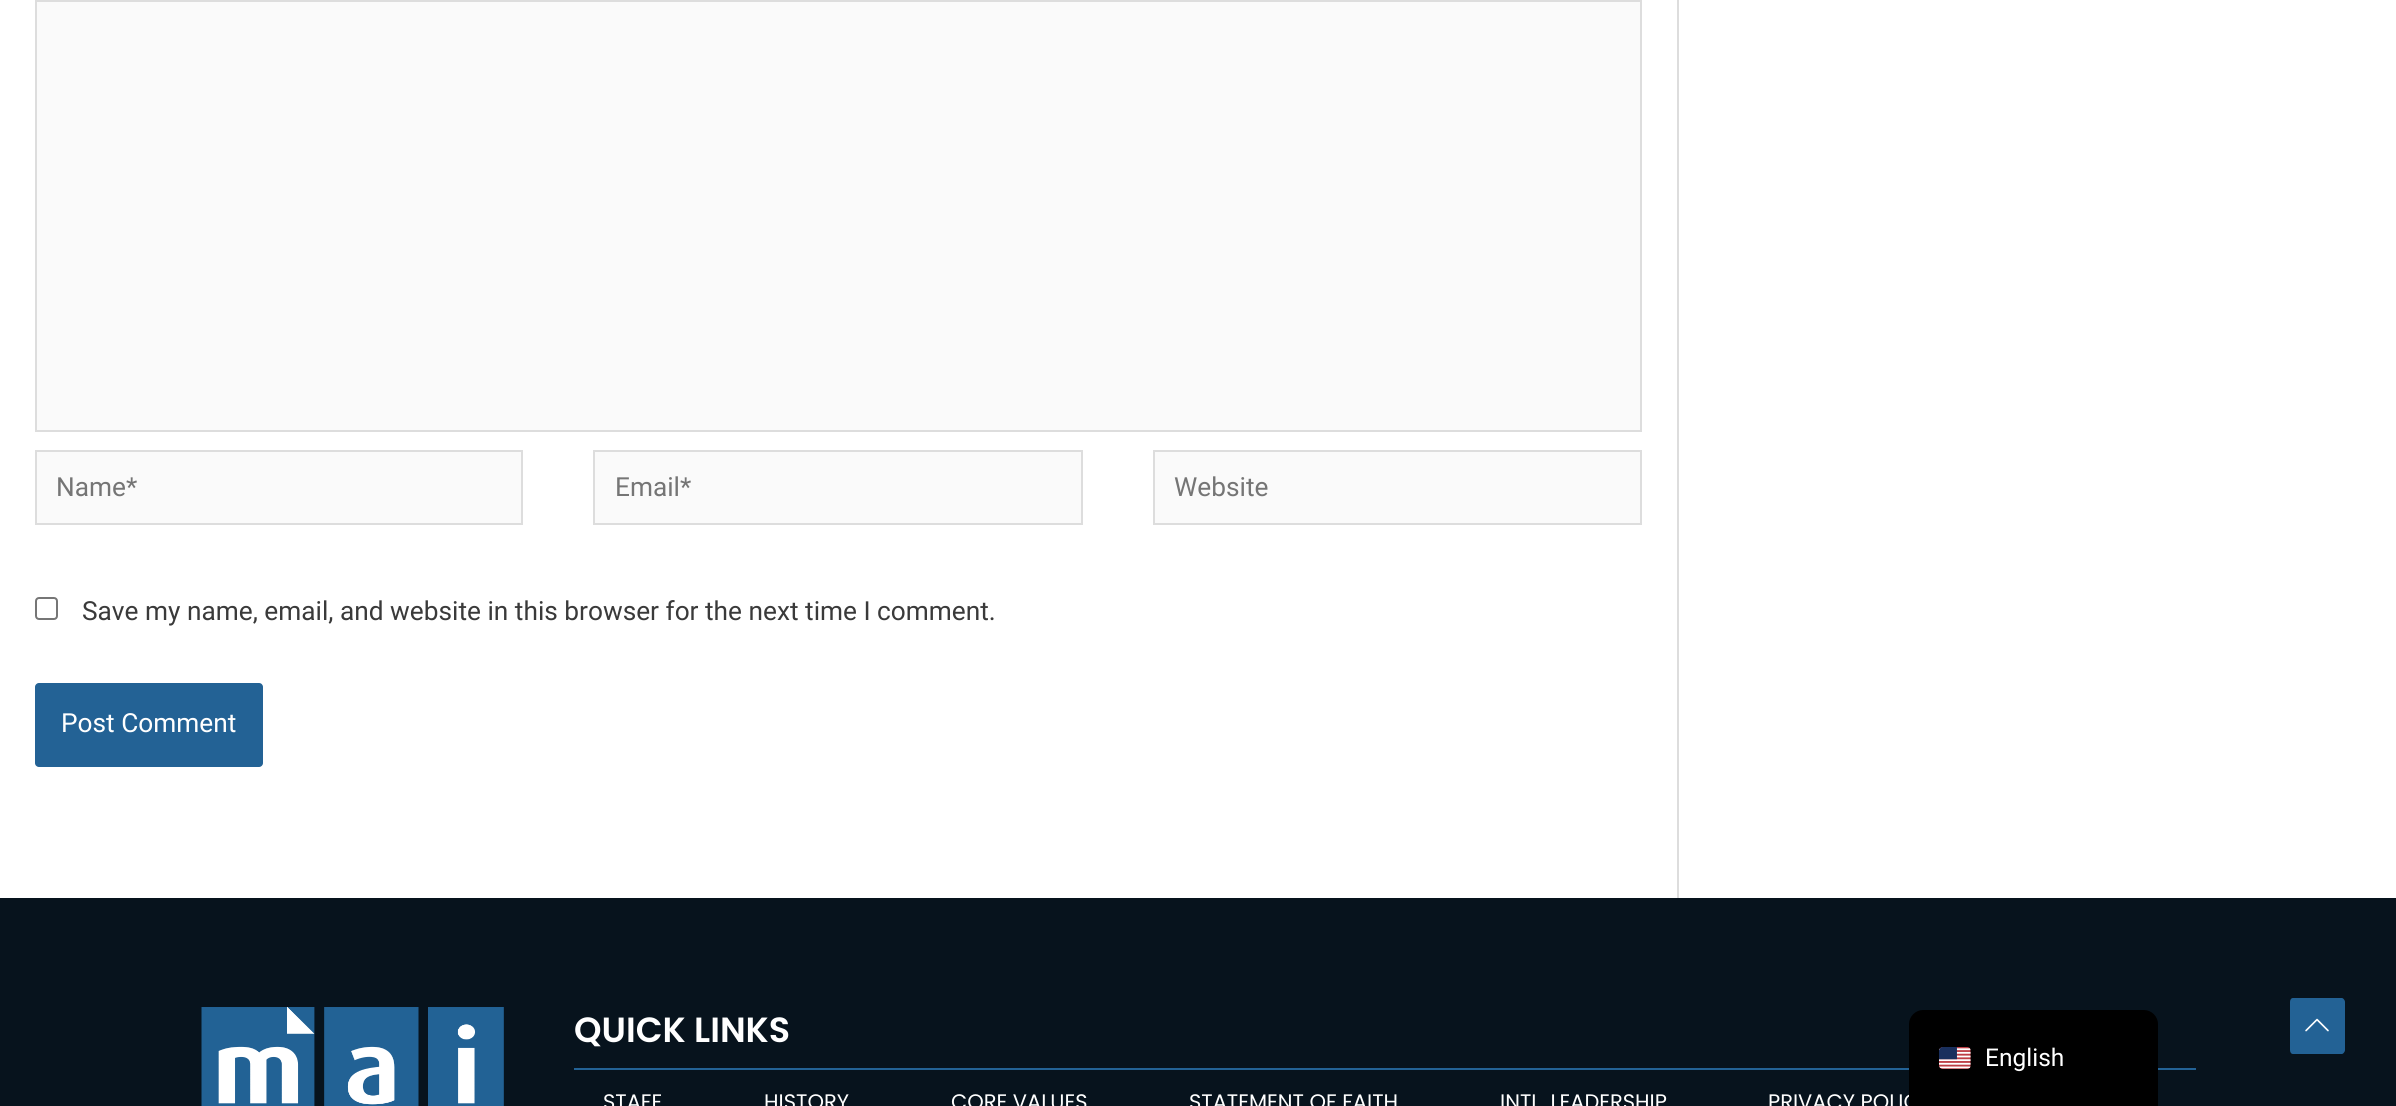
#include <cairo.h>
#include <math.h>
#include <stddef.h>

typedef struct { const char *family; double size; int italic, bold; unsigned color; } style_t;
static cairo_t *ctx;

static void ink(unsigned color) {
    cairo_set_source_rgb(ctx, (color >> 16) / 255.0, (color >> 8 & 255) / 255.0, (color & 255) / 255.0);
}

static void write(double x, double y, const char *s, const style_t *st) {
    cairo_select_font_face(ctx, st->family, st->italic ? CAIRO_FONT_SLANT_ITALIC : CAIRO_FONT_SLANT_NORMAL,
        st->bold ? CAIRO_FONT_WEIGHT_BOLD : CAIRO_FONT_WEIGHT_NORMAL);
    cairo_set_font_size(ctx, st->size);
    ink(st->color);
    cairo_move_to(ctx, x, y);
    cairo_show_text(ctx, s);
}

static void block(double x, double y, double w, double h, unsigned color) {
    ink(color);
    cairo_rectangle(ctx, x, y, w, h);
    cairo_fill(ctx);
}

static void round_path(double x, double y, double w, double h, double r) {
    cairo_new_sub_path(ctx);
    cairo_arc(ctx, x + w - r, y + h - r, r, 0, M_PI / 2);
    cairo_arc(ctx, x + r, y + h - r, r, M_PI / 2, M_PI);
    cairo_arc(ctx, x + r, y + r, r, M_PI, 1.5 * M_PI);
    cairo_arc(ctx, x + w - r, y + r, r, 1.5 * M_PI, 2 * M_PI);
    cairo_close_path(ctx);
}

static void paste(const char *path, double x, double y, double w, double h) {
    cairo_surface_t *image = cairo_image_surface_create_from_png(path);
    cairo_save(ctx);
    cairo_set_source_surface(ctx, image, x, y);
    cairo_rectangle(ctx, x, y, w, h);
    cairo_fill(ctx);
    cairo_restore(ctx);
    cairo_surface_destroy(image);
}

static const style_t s1 = {"Roboto", 26.25, 0, 0, 0x757575};
static const style_t s2 = {"Roboto", 26.25, 0, 0, 0x3a3a3a};
static const style_t s3 = {"Roboto", 26.25, 0, 0, 0xffffff};
static const style_t s4 = {"Poppins SemiBold", 35, 0, 0, 0xffffff};
static const style_t s5 = {"Poppins", 21, 0, 0, 0xffffff};
static const style_t s6 = {"Roboto", 24.5, 0, 0, 0xffffff};

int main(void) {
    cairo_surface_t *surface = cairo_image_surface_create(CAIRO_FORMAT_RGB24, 2396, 1106);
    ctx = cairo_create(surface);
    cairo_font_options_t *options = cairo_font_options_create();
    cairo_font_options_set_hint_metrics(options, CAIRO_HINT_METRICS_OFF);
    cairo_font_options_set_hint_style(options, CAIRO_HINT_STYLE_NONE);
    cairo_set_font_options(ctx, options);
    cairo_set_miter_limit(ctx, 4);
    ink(0xffffff);
    cairo_paint(ctx);
    block(1677, 0, 2, 898, 0xdddddd);
    ink(0xfafafa);
    cairo_rectangle(ctx, 36, 1, 1605, 430);
    cairo_fill_preserve(ctx);
    ink(0xdddddd);
    cairo_stroke(ctx);
    ink(0xfafafa);
    cairo_rectangle(ctx, 36, 451, 486, 73);
    cairo_fill_preserve(ctx);
    ink(0xdddddd);
    cairo_stroke(ctx);
    write(56, 496, "Name*", &s1);
    ink(0xfafafa);
    cairo_rectangle(ctx, 594, 451, 488, 73);
    cairo_fill_preserve(ctx);
    ink(0xdddddd);
    cairo_stroke(ctx);
    write(615, 496, "Email*", &s1);
    ink(0xfafafa);
    cairo_rectangle(ctx, 1154, 451, 487, 73);
    cairo_fill_preserve(ctx);
    ink(0xdddddd);
    cairo_stroke(ctx);
    write(1174, 496, "Website", &s1);
    round_path(36, 598, 21, 21, 3);
    ink(0x767676);
    cairo_stroke(ctx);
    write(82, 620, "Save my name, email, and website in this browser for the next time I comment.", &s2);
    ink(0x236295);
    round_path(35, 683, 228, 84, 4);
    cairo_fill(ctx);
    write(61, 732, "Post Comment", &s3);
    block(0, 898, 2396, 208, 0x07131d);
    paste("pic1.png", 201, 1007, 303, 99);
    write(574, 1042, "QUICK LINKS", &s4);
    block(574, 1068, 1622, 2, 0x236295);
    write(603, 1109, "STAFF", &s5);
    write(764, 1109, "HISTORY", &s5);
    write(951, 1109, "CORE VALUES", &s5);
    write(1189, 1109, "STATEMENT OF FAITH", &s5);
    write(1500, 1109, "INTL. LEADERSHIP", &s5);
    write(1768, 1109, "PRIVACY POLIC", &s5);
    ink(0x236295);
    cairo_new_path(ctx);
    cairo_move_to(ctx, 2342, 1054);
    cairo_line_to(ctx, 2293, 1054);
    cairo_curve_to(ctx, 2291, 1054, 2290, 1052, 2290, 1050);
    cairo_line_to(ctx, 2290, 1002);
    cairo_curve_to(ctx, 2290, 1000, 2291, 998, 2293, 998);
    cairo_line_to(ctx, 2342, 998);
    cairo_curve_to(ctx, 2343, 998, 2345, 1000, 2345, 1002);
    cairo_line_to(ctx, 2345, 1050);
    cairo_curve_to(ctx, 2345, 1052, 2343, 1054, 2342, 1054);
    cairo_close_path(ctx);
    cairo_fill(ctx);
    paste("pic2.png", 2305, 1018, 24, 14);
    ink(0x000000);
    cairo_new_path(ctx);
    cairo_move_to(ctx, 1923, 1010);
    cairo_line_to(ctx, 2144, 1010);
    cairo_curve_to(ctx, 2151.5, 1010, 2158, 1016.5, 2158, 1024);
    cairo_line_to(ctx, 2158, 1106);
    cairo_line_to(ctx, 1909, 1106);
    cairo_line_to(ctx, 1909, 1024);
    cairo_curve_to(ctx, 1909, 1016.5, 1915.5, 1010, 1923, 1010);
    cairo_close_path(ctx);
    cairo_fill(ctx);
    paste("pic3.png", 1939, 1047, 32, 22);
    write(1985, 1066, "English", &s6);
    cairo_surface_write_to_png(surface, "screenshot.png");
    cairo_font_options_destroy(options);
    cairo_destroy(ctx);
    cairo_surface_destroy(surface);
    return 0;
}
